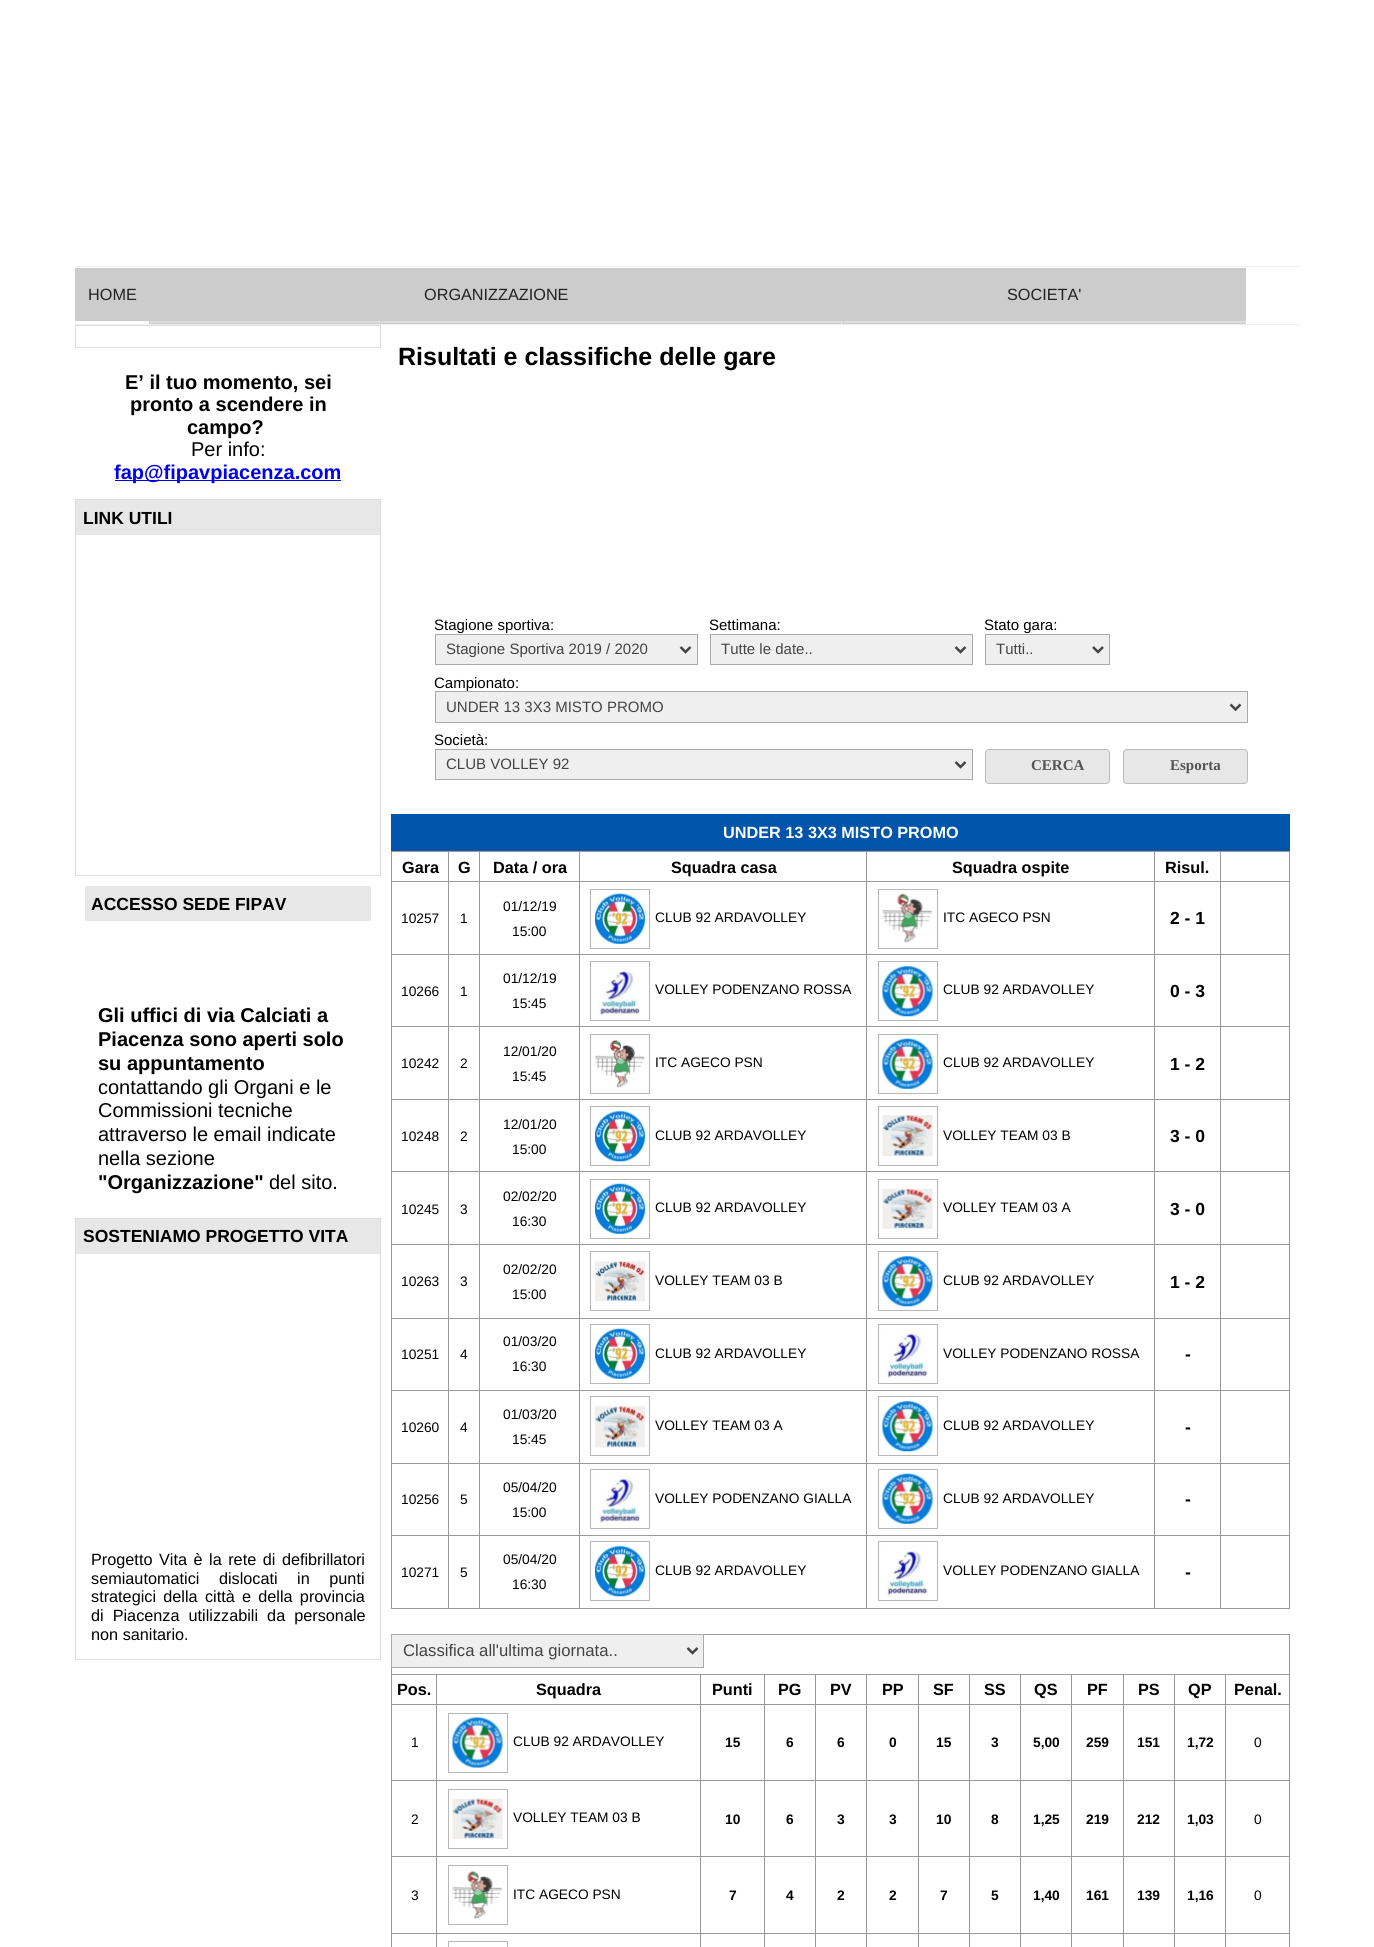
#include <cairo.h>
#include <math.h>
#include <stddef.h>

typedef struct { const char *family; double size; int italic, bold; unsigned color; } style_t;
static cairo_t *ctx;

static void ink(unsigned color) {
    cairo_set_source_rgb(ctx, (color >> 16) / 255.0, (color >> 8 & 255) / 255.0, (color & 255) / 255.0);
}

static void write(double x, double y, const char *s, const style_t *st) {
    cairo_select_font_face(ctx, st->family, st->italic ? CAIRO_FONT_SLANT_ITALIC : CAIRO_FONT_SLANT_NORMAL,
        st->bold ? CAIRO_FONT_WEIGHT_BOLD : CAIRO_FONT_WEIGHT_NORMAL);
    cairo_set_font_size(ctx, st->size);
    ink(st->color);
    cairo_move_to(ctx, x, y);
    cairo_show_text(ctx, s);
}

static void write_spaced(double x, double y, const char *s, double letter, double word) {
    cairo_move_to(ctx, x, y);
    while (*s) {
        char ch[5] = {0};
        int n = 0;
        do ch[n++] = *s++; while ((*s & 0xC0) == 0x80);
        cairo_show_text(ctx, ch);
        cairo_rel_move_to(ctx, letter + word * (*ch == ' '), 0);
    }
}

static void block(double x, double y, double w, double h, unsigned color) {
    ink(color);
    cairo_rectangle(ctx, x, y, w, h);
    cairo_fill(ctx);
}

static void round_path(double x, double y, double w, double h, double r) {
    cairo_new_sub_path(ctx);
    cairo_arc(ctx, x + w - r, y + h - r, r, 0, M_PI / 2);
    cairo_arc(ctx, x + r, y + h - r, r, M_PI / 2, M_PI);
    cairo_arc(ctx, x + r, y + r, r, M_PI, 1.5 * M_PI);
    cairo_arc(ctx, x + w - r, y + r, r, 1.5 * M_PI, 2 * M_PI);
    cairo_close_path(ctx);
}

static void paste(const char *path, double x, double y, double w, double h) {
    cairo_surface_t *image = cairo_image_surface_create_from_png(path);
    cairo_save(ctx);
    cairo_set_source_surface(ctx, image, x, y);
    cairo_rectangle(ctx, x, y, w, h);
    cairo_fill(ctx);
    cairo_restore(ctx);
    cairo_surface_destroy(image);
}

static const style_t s1 = {"Liberation Sans", 16.25, 0, 0, 0x222222};
static const style_t s2 = {"Liberation Sans", 20, 0, 1, 0x000000};
static const style_t s3 = {"Liberation Sans", 20, 0, 0, 0x000000};
static const style_t s4 = {"Liberation Sans", 20, 0, 1, 0x0000ee};
static const style_t s5 = {"Liberation Sans", 17.5, 0, 1, 0x000000};
static const style_t s6 = {"Liberation Sans", 16.25, 0, 0, 0x000000};
static const style_t s7 = {"Liberation Sans", 25, 0, 1, 0x000000};
static const style_t s8 = {"Liberation Sans", 15, 0, 0, 0x000000};
static const style_t s9 = {"Liberation Sans", 15, 0, 0, 0x444444};
static const style_t s10 = {"Liberation Serif", 15, 0, 1, 0x555555};
static const style_t s11 = {"Liberation Sans", 16.25, 0, 1, 0xffffff};
static const style_t s12 = {"Liberation Sans", 16.25, 0, 1, 0x000000};
static const style_t s13 = {"Liberation Sans", 13.75, 0, 0, 0x000000};
static const style_t s14 = {"Liberation Sans", 16.7, 0, 0, 0x444444};
static const style_t s15 = {"Liberation Sans", 13.75, 0, 1, 0x000000};

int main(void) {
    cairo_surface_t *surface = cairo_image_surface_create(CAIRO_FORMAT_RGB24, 1374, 1947);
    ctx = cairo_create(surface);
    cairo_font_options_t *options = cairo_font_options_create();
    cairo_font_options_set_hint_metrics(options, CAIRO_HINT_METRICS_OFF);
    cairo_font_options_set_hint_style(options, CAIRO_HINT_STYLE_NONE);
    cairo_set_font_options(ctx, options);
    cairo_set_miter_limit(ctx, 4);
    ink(0xffffff);
    cairo_paint(ctx);
    block(75, 266, 1225, 1, 0xeeeeee);
    block(75, 324, 1225, 1, 0xeeeeee);
    block(75, 268, 74, 53, 0xcccccc);
    write(88, 300, "HOME", &s1);
    block(149, 268, 1097, 56, 0xcccccc);
    write(424, 300, "ORGANIZZAZIONE", &s1);
    block(150, 321, 693, 3, 0xdddddd);
    block(151, 323, 690, 1, 0xcccccc);
    write(1007, 300, "SOCIETA'", &s1);
    block(844, 321, 402, 3, 0xdddddd);
    block(845, 323, 400, 1, 0xcccccc);
    cairo_rectangle(ctx, 75.5, 325.5, 305, 22);
    ink(0xdddddd);
    cairo_set_line_width(ctx, 1);
    cairo_stroke(ctx);
    write(125, 389, "E’ il tuo momento, sei", &s2);
    write(130, 411, "pronto a scendere in", &s2);
    write(187, 434, "campo?", &s2);
    write(191, 456, "Per info:", &s3);
    block(115, 480, 226, 1, 0x0000ee);
    write(114, 479, "fap@fipavpiacenza.com", &s4);
    cairo_rectangle(ctx, 75.5, 499.5, 305, 376);
    ink(0xdddddd);
    cairo_stroke(ctx);
    block(76, 500, 304, 35, 0xe7e7e7);
    write(83, 524, "LINK UTILI", &s5);
    block(85, 886, 286, 35, 0xe7e7e7);
    write(91, 910, "ACCESSO SEDE FIPAV", &s5);
    write(98, 1022, "Gli uffici di via Calciati a", &s2);
    write(98, 1046, "Piacenza sono aperti solo", &s2);
    write(98, 1070, "su appuntamento", &s2);
    write(98, 1094, "contattando gli Organi e le", &s3);
    write(98, 1117, "Commissioni tecniche", &s3);
    write(98, 1141, "attraverso le email indicate", &s3);
    write(98, 1165, "nella sezione", &s3);
    write(98, 1189, "\"Organizzazione\"", &s2);
    write(269, 1189, "del sito.", &s3);
    cairo_rectangle(ctx, 75.5, 1218.5, 305, 441);
    ink(0xdddddd);
    cairo_stroke(ctx);
    block(76, 1219, 304, 35, 0xe7e7e7);
    write(83, 1242, "SOSTENIAMO PROGETTO VITA", &s5);
    cairo_select_font_face(ctx, "Liberation Sans", CAIRO_FONT_SLANT_NORMAL, CAIRO_FONT_WEIGHT_NORMAL);
    cairo_set_font_size(ctx, 16.25);
    write_spaced(91, 1565, "Progetto Vita è la rete di defibrillatori", 0, 2);
    write_spaced(91, 1584, "semiautomatici dislocati in punti", 0, 15);
    write_spaced(91, 1602, "strategici della città e della provincia", 0, 2.75);
    write_spaced(91, 1621, "di Piacenza utilizzabili da personale", 0, 4.5);
    write(91, 1640, "non sanitario.", &s6);
    write(398, 365, "Risultati e classifiche delle gare", &s7);
    write(434, 630, "Stagione sportiva:", &s8);
    ink(0xefefef);
    cairo_rectangle(ctx, 435.5, 634.5, 262, 30);
    cairo_fill_preserve(ctx);
    ink(0xaaaaaa);
    cairo_stroke(ctx);
    cairo_new_path(ctx);
    cairo_move_to(ctx, 680.5, 647);
    cairo_line_to(ctx, 685.5, 652);
    cairo_line_to(ctx, 690.5, 647);
    ink(0x444444);
    cairo_set_line_width(ctx, 2.5);
    cairo_stroke(ctx);
    write(446, 654, "Stagione Sportiva 2019 / 2020", &s9);
    write(709, 630, "Settimana:", &s8);
    ink(0xefefef);
    cairo_rectangle(ctx, 710.5, 634.5, 262, 30);
    cairo_fill_preserve(ctx);
    ink(0xaaaaaa);
    cairo_set_line_width(ctx, 1);
    cairo_stroke(ctx);
    cairo_new_path(ctx);
    cairo_move_to(ctx, 955.5, 647);
    cairo_line_to(ctx, 960.5, 652);
    cairo_line_to(ctx, 965.5, 647);
    ink(0x444444);
    cairo_set_line_width(ctx, 2.5);
    cairo_stroke(ctx);
    write(721, 654, "Tutte le date..", &s9);
    write(984, 630, "Stato gara:", &s8);
    ink(0xefefef);
    cairo_rectangle(ctx, 985.5, 634.5, 124, 30);
    cairo_fill_preserve(ctx);
    ink(0xaaaaaa);
    cairo_set_line_width(ctx, 1);
    cairo_stroke(ctx);
    cairo_new_path(ctx);
    cairo_move_to(ctx, 1093, 647);
    cairo_line_to(ctx, 1098, 652);
    cairo_line_to(ctx, 1103, 647);
    ink(0x444444);
    cairo_set_line_width(ctx, 2.5);
    cairo_stroke(ctx);
    write(996, 654, "Tutti..", &s9);
    write(434, 688, "Campionato:", &s8);
    ink(0xefefef);
    cairo_rectangle(ctx, 435.5, 691.5, 812, 31);
    cairo_fill_preserve(ctx);
    ink(0xaaaaaa);
    cairo_set_line_width(ctx, 1);
    cairo_stroke(ctx);
    cairo_new_path(ctx);
    cairo_move_to(ctx, 1230.5, 704.5);
    cairo_line_to(ctx, 1235.5, 709.5);
    cairo_line_to(ctx, 1240.5, 704.5);
    ink(0x444444);
    cairo_set_line_width(ctx, 2.5);
    cairo_stroke(ctx);
    write(446, 712, "UNDER 13 3X3 MISTO PROMO", &s9);
    write(434, 745, "Società:", &s8);
    ink(0xefefef);
    cairo_rectangle(ctx, 435.5, 749.5, 537, 30);
    cairo_fill_preserve(ctx);
    ink(0xaaaaaa);
    cairo_set_line_width(ctx, 1);
    cairo_stroke(ctx);
    cairo_new_path(ctx);
    cairo_move_to(ctx, 955.5, 762);
    cairo_line_to(ctx, 960.5, 767);
    cairo_line_to(ctx, 965.5, 762);
    ink(0x444444);
    cairo_set_line_width(ctx, 2.5);
    cairo_stroke(ctx);
    write(446, 769, "CLUB VOLLEY 92", &s9);
    ink(0xe7e7e7);
    round_path(985.5, 749.5, 124, 34, 3.5);
    cairo_fill_preserve(ctx);
    ink(0xbbbbbb);
    cairo_set_line_width(ctx, 1);
    cairo_stroke(ctx);
    write(1031, 770, "CERCA", &s10);
    ink(0xe7e7e7);
    round_path(1123.5, 749.5, 124, 34, 3.5);
    cairo_fill_preserve(ctx);
    ink(0xbbbbbb);
    cairo_stroke(ctx);
    write(1170, 770, "Esporta", &s10);
    block(1289, 852, 1, 757, 0x999999);
    block(391, 1608, 899, 1, 0x999999);
    block(391, 852, 1, 757, 0x999999);
    block(391, 814, 899, 37, 0x0055aa);
    write(723, 838, "UNDER 13 3X3 MISTO PROMO", &s11);
    block(1220, 851, 70, 1, 0x999999);
    block(1220, 881, 70, 1, 0x999999);
    block(1220, 954, 70, 1, 0x999999);
    block(1220, 1026, 70, 1, 0x999999);
    block(1220, 1099, 70, 1, 0x999999);
    block(1220, 1171, 70, 1, 0x999999);
    block(1220, 1244, 70, 1, 0x999999);
    block(1220, 1318, 70, 1, 0x999999);
    block(1220, 1390, 70, 1, 0x999999);
    block(1220, 1463, 70, 1, 0x999999);
    block(1220, 1535, 70, 1, 0x999999);
    block(1220, 1535, 1, 74, 0x999999);
    block(1154, 1535, 67, 1, 0x999999);
    block(1220, 1463, 1, 73, 0x999999);
    block(1154, 1463, 67, 1, 0x999999);
    block(1220, 1390, 1, 74, 0x999999);
    block(1154, 1390, 67, 1, 0x999999);
    block(1220, 1318, 1, 73, 0x999999);
    block(1154, 1318, 67, 1, 0x999999);
    block(1220, 1244, 1, 75, 0x999999);
    block(1154, 1244, 67, 1, 0x999999);
    block(1220, 1171, 1, 74, 0x999999);
    block(1154, 1171, 67, 1, 0x999999);
    block(1220, 1099, 1, 74, 0x999999);
    block(1154, 1099, 67, 1, 0x999999);
    block(1220, 1026, 1, 74, 0x999999);
    block(1154, 1026, 67, 1, 0x999999);
    block(1220, 954, 1, 74, 0x999999);
    block(1154, 954, 67, 1, 0x999999);
    block(1220, 881, 1, 74, 0x999999);
    block(1154, 881, 67, 1, 0x999999);
    block(1220, 851, 1, 32, 0x999999);
    block(1154, 851, 67, 1, 0x999999);
    block(1154, 1535, 1, 74, 0x999999);
    block(866, 1535, 289, 1, 0x999999);
    block(1154, 1463, 1, 73, 0x999999);
    block(866, 1463, 289, 1, 0x999999);
    block(1154, 1390, 1, 74, 0x999999);
    block(866, 1390, 289, 1, 0x999999);
    block(1154, 1318, 1, 73, 0x999999);
    block(866, 1318, 289, 1, 0x999999);
    block(1154, 1244, 1, 75, 0x999999);
    block(866, 1244, 289, 1, 0x999999);
    block(1154, 1171, 1, 74, 0x999999);
    block(866, 1171, 289, 1, 0x999999);
    block(1154, 1099, 1, 74, 0x999999);
    block(866, 1099, 289, 1, 0x999999);
    block(1154, 1026, 1, 74, 0x999999);
    block(866, 1026, 289, 1, 0x999999);
    block(1154, 954, 1, 74, 0x999999);
    block(866, 954, 289, 1, 0x999999);
    block(1154, 881, 1, 74, 0x999999);
    block(866, 881, 289, 1, 0x999999);
    block(1154, 851, 1, 32, 0x999999);
    block(866, 851, 289, 1, 0x999999);
    block(866, 1535, 1, 74, 0x999999);
    block(579, 1535, 289, 1, 0x999999);
    block(866, 1463, 1, 73, 0x999999);
    block(579, 1463, 289, 1, 0x999999);
    block(866, 1390, 1, 74, 0x999999);
    block(579, 1390, 289, 1, 0x999999);
    block(866, 1318, 1, 73, 0x999999);
    block(579, 1318, 289, 1, 0x999999);
    block(866, 1244, 1, 75, 0x999999);
    block(579, 1244, 289, 1, 0x999999);
    block(866, 1171, 1, 74, 0x999999);
    block(579, 1171, 289, 1, 0x999999);
    block(866, 1099, 1, 74, 0x999999);
    block(579, 1099, 289, 1, 0x999999);
    block(866, 1026, 1, 74, 0x999999);
    block(579, 1026, 289, 1, 0x999999);
    block(866, 954, 1, 74, 0x999999);
    block(579, 954, 289, 1, 0x999999);
    block(866, 881, 1, 74, 0x999999);
    block(579, 881, 289, 1, 0x999999);
    block(866, 851, 1, 32, 0x999999);
    block(579, 851, 289, 1, 0x999999);
    block(579, 1535, 1, 74, 0x999999);
    block(479, 1535, 101, 1, 0x999999);
    block(579, 1463, 1, 73, 0x999999);
    block(479, 1463, 101, 1, 0x999999);
    block(579, 1390, 1, 74, 0x999999);
    block(479, 1390, 101, 1, 0x999999);
    block(579, 1318, 1, 73, 0x999999);
    block(479, 1318, 101, 1, 0x999999);
    block(579, 1244, 1, 75, 0x999999);
    block(479, 1244, 101, 1, 0x999999);
    block(579, 1171, 1, 74, 0x999999);
    block(479, 1171, 101, 1, 0x999999);
    block(579, 1099, 1, 74, 0x999999);
    block(479, 1099, 101, 1, 0x999999);
    block(579, 1026, 1, 74, 0x999999);
    block(479, 1026, 101, 1, 0x999999);
    block(579, 954, 1, 74, 0x999999);
    block(479, 954, 101, 1, 0x999999);
    block(579, 881, 1, 74, 0x999999);
    block(479, 881, 101, 1, 0x999999);
    block(579, 851, 1, 32, 0x999999);
    block(479, 851, 101, 1, 0x999999);
    block(479, 1535, 1, 74, 0x999999);
    block(448, 1535, 32, 1, 0x999999);
    block(479, 1463, 1, 73, 0x999999);
    block(448, 1463, 32, 1, 0x999999);
    block(479, 1390, 1, 74, 0x999999);
    block(448, 1390, 32, 1, 0x999999);
    block(479, 1318, 1, 73, 0x999999);
    block(448, 1318, 32, 1, 0x999999);
    block(479, 1244, 1, 75, 0x999999);
    block(448, 1244, 32, 1, 0x999999);
    block(479, 1171, 1, 74, 0x999999);
    block(448, 1171, 32, 1, 0x999999);
    block(479, 1099, 1, 74, 0x999999);
    block(448, 1099, 32, 1, 0x999999);
    block(479, 1026, 1, 74, 0x999999);
    block(448, 1026, 32, 1, 0x999999);
    block(479, 954, 1, 74, 0x999999);
    block(448, 954, 32, 1, 0x999999);
    block(479, 881, 1, 74, 0x999999);
    block(448, 881, 32, 1, 0x999999);
    block(479, 851, 1, 32, 0x999999);
    block(448, 851, 32, 1, 0x999999);
    block(448, 1535, 1, 74, 0x999999);
    block(391, 1535, 58, 1, 0x999999);
    block(448, 1463, 1, 73, 0x999999);
    block(391, 1463, 58, 1, 0x999999);
    block(448, 1390, 1, 74, 0x999999);
    block(391, 1390, 58, 1, 0x999999);
    block(448, 1318, 1, 73, 0x999999);
    block(391, 1318, 58, 1, 0x999999);
    block(448, 1244, 1, 75, 0x999999);
    block(391, 1244, 58, 1, 0x999999);
    block(448, 1171, 1, 74, 0x999999);
    block(391, 1171, 58, 1, 0x999999);
    block(448, 1099, 1, 74, 0x999999);
    block(391, 1099, 58, 1, 0x999999);
    block(448, 1026, 1, 74, 0x999999);
    block(391, 1026, 58, 1, 0x999999);
    block(448, 954, 1, 74, 0x999999);
    block(391, 954, 58, 1, 0x999999);
    block(448, 881, 1, 74, 0x999999);
    block(391, 881, 58, 1, 0x999999);
    block(448, 851, 1, 32, 0x999999);
    block(391, 851, 58, 1, 0x999999);
    write(402, 873, "Gara", &s12);
    write(458, 873, "G", &s12);
    write(493, 873, "Data / ora", &s12);
    write(671, 873, "Squadra casa", &s12);
    write(952, 873, "Squadra ospite", &s12);
    write(1165, 873, "Risul.", &s12);
    write(401, 923, "10257", &s13);
    write(460, 923, "1", &s13);
    write(503, 911, "01/12/19", &s13);
    write(512, 936, "15:00", &s13);
    cairo_rectangle(ctx, 590.5, 889.5, 59, 59);
    ink(0xb7b7b7);
    cairo_stroke(ctx);
    paste("pic1.png", 595, 893, 50, 51);
    write(655, 922, "CLUB 92 ARDAVOLLEY", &s13);
    cairo_rectangle(ctx, 878.5, 889.5, 59, 59);
    ink(0xb7b7b7);
    cairo_stroke(ctx);
    paste("pic2.png", 882, 893, 51, 50);
    write(943, 922, "ITC AGECO PSN", &s13);
    write(1170, 924, "2 - 1", &s5);
    write(401, 996, "10266", &s13);
    write(460, 996, "1", &s13);
    write(503, 983, "01/12/19", &s13);
    write(512, 1008, "15:45", &s13);
    cairo_rectangle(ctx, 590.5, 961.5, 59, 59);
    ink(0xb7b7b7);
    cairo_stroke(ctx);
    paste("pic3.png", 598, 966, 42, 50);
    write(655, 994, "VOLLEY PODENZANO ROSSA", &s13);
    cairo_rectangle(ctx, 878.5, 961.5, 59, 59);
    ink(0xb7b7b7);
    cairo_stroke(ctx);
    paste("pic4.png", 882, 966, 51, 51);
    write(943, 994, "CLUB 92 ARDAVOLLEY", &s13);
    write(1170, 997, "0 - 3", &s5);
    write(401, 1068, "10242", &s13);
    write(460, 1068, "2", &s13);
    write(503, 1056, "12/01/20", &s13);
    write(512, 1081, "15:45", &s13);
    cairo_rectangle(ctx, 590.5, 1034.5, 59, 59);
    ink(0xb7b7b7);
    cairo_stroke(ctx);
    paste("pic5.png", 595, 1040, 50, 48);
    write(655, 1067, "ITC AGECO PSN", &s13);
    cairo_rectangle(ctx, 878.5, 1034.5, 59, 59);
    ink(0xb7b7b7);
    cairo_stroke(ctx);
    paste("pic6.png", 882, 1038, 51, 51);
    write(943, 1067, "CLUB 92 ARDAVOLLEY", &s13);
    write(1170, 1070, "1 - 2", &s5);
    write(401, 1141, "10248", &s13);
    write(460, 1141, "2", &s13);
    write(503, 1129, "12/01/20", &s13);
    write(512, 1154, "15:00", &s13);
    cairo_rectangle(ctx, 590.5, 1106.5, 59, 59);
    ink(0xb7b7b7);
    cairo_stroke(ctx);
    paste("pic7.png", 595, 1111, 50, 51);
    write(655, 1140, "CLUB 92 ARDAVOLLEY", &s13);
    cairo_rectangle(ctx, 878.5, 1106.5, 59, 59);
    ink(0xb7b7b7);
    cairo_stroke(ctx);
    paste("pic8.png", 882, 1115, 51, 42);
    write(943, 1140, "VOLLEY TEAM 03 B", &s13);
    write(1170, 1142, "3 - 0", &s5);
    write(401, 1214, "10245", &s13);
    write(460, 1214, "3", &s13);
    write(503, 1201, "02/02/20", &s13);
    write(512, 1226, "16:30", &s13);
    cairo_rectangle(ctx, 590.5, 1179.5, 59, 59);
    ink(0xb7b7b7);
    cairo_stroke(ctx);
    paste("pic1.png", 595, 1183, 50, 51);
    write(655, 1212, "CLUB 92 ARDAVOLLEY", &s13);
    cairo_rectangle(ctx, 878.5, 1179.5, 59, 59);
    ink(0xb7b7b7);
    cairo_stroke(ctx);
    paste("pic9.png", 882, 1188, 51, 41);
    write(943, 1212, "VOLLEY TEAM 03 A", &s13);
    write(1170, 1215, "3 - 0", &s5);
    write(401, 1286, "10263", &s13);
    write(460, 1286, "3", &s13);
    write(503, 1274, "02/02/20", &s13);
    write(512, 1299, "15:00", &s13);
    cairo_rectangle(ctx, 590.5, 1251.5, 59, 59);
    ink(0xb7b7b7);
    cairo_stroke(ctx);
    paste("pic10.png", 595, 1261, 50, 41);
    write(655, 1285, "VOLLEY TEAM 03 B", &s13);
    cairo_rectangle(ctx, 878.5, 1251.5, 59, 59);
    ink(0xb7b7b7);
    cairo_stroke(ctx);
    paste("pic4.png", 882, 1256, 51, 51);
    write(943, 1285, "CLUB 92 ARDAVOLLEY", &s13);
    write(1170, 1288, "1 - 2", &s5);
    write(401, 1359, "10251", &s13);
    write(460, 1359, "4", &s13);
    write(503, 1346, "01/03/20", &s13);
    write(512, 1371, "16:30", &s13);
    cairo_rectangle(ctx, 590.5, 1324.5, 59, 59);
    ink(0xb7b7b7);
    cairo_stroke(ctx);
    paste("pic1.png", 595, 1328, 50, 51);
    write(655, 1358, "CLUB 92 ARDAVOLLEY", &s13);
    cairo_rectangle(ctx, 878.5, 1324.5, 59, 59);
    ink(0xb7b7b7);
    cairo_stroke(ctx);
    paste("pic11.png", 885, 1329, 43, 49);
    write(943, 1358, "VOLLEY PODENZANO ROSSA", &s13);
    write(1185, 1360, "-", &s5);
    write(401, 1432, "10260", &s13);
    write(460, 1432, "4", &s13);
    write(503, 1419, "01/03/20", &s13);
    write(512, 1444, "15:45", &s13);
    cairo_rectangle(ctx, 590.5, 1396.5, 59, 59);
    ink(0xb7b7b7);
    cairo_stroke(ctx);
    paste("pic12.png", 595, 1406, 50, 42);
    write(655, 1430, "VOLLEY TEAM 03 A", &s13);
    cairo_rectangle(ctx, 878.5, 1396.5, 59, 59);
    ink(0xb7b7b7);
    cairo_stroke(ctx);
    paste("pic4.png", 882, 1401, 51, 51);
    write(943, 1430, "CLUB 92 ARDAVOLLEY", &s13);
    write(1185, 1433, "-", &s5);
    write(401, 1504, "10256", &s13);
    write(460, 1504, "5", &s13);
    write(503, 1492, "05/04/20", &s13);
    write(512, 1517, "15:00", &s13);
    cairo_rectangle(ctx, 590.5, 1469.5, 59, 59);
    ink(0xb7b7b7);
    cairo_stroke(ctx);
    paste("pic13.png", 598, 1474, 42, 49);
    write(655, 1503, "VOLLEY PODENZANO GIALLA", &s13);
    cairo_rectangle(ctx, 878.5, 1469.5, 59, 59);
    ink(0xb7b7b7);
    cairo_stroke(ctx);
    paste("pic6.png", 882, 1473, 51, 51);
    write(943, 1503, "CLUB 92 ARDAVOLLEY", &s13);
    write(1185, 1505, "-", &s5);
    write(401, 1577, "10271", &s13);
    write(460, 1577, "5", &s13);
    write(503, 1564, "05/04/20", &s13);
    write(512, 1589, "16:30", &s13);
    cairo_rectangle(ctx, 590.5, 1541.5, 59, 59);
    ink(0xb7b7b7);
    cairo_stroke(ctx);
    paste("pic7.png", 595, 1546, 50, 51);
    write(655, 1575, "CLUB 92 ARDAVOLLEY", &s13);
    cairo_rectangle(ctx, 878.5, 1541.5, 59, 59);
    ink(0xb7b7b7);
    cairo_stroke(ctx);
    paste("pic14.png", 885, 1546, 43, 50);
    write(943, 1575, "VOLLEY PODENZANO GIALLA", &s13);
    write(1185, 1578, "-", &s5);
    block(704, 1634, 586, 1, 0x999999);
    block(1289, 1634, 1, 313, 0x999999);
    block(391, 1668, 1, 279, 0x999999);
    ink(0xefefef);
    cairo_rectangle(ctx, 391.5, 1634.5, 312, 33);
    cairo_fill_preserve(ctx);
    ink(0xaaaaaa);
    cairo_stroke(ctx);
    cairo_new_path(ctx);
    cairo_move_to(ctx, 687.5, 1648);
    cairo_line_to(ctx, 692.5, 1653);
    cairo_line_to(ctx, 697.5, 1648);
    ink(0x444444);
    cairo_set_line_width(ctx, 2.5);
    cairo_stroke(ctx);
    write(403, 1656, "Classifica all'ultima giornata..", &s14);
    block(1225, 1674, 65, 1, 0x999999);
    block(1225, 1704, 65, 1, 0x999999);
    block(1225, 1780, 65, 1, 0x999999);
    block(1225, 1856, 65, 1, 0x999999);
    block(1225, 1933, 65, 1, 0x999999);
    block(1225, 1933, 1, 14, 0x999999);
    block(1174, 1933, 52, 1, 0x999999);
    block(1225, 1856, 1, 78, 0x999999);
    block(1174, 1856, 52, 1, 0x999999);
    block(1225, 1780, 1, 78, 0x999999);
    block(1174, 1780, 52, 1, 0x999999);
    block(1225, 1704, 1, 77, 0x999999);
    block(1174, 1704, 52, 1, 0x999999);
    block(1225, 1674, 1, 31, 0x999999);
    block(1174, 1674, 52, 1, 0x999999);
    block(1174, 1933, 1, 14, 0x999999);
    block(1123, 1933, 52, 1, 0x999999);
    block(1174, 1856, 1, 78, 0x999999);
    block(1123, 1856, 52, 1, 0x999999);
    block(1174, 1780, 1, 78, 0x999999);
    block(1123, 1780, 52, 1, 0x999999);
    block(1174, 1704, 1, 77, 0x999999);
    block(1123, 1704, 52, 1, 0x999999);
    block(1174, 1674, 1, 31, 0x999999);
    block(1123, 1674, 52, 1, 0x999999);
    block(1123, 1933, 1, 14, 0x999999);
    block(1071, 1933, 53, 1, 0x999999);
    block(1123, 1856, 1, 78, 0x999999);
    block(1071, 1856, 53, 1, 0x999999);
    block(1123, 1780, 1, 78, 0x999999);
    block(1071, 1780, 53, 1, 0x999999);
    block(1123, 1704, 1, 77, 0x999999);
    block(1071, 1704, 53, 1, 0x999999);
    block(1123, 1674, 1, 31, 0x999999);
    block(1071, 1674, 53, 1, 0x999999);
    block(1071, 1933, 1, 14, 0x999999);
    block(1020, 1933, 53, 1, 0x999999);
    block(1071, 1856, 1, 78, 0x999999);
    block(1020, 1856, 53, 1, 0x999999);
    block(1071, 1780, 1, 78, 0x999999);
    block(1020, 1780, 53, 1, 0x999999);
    block(1071, 1704, 1, 77, 0x999999);
    block(1020, 1704, 53, 1, 0x999999);
    block(1071, 1674, 1, 31, 0x999999);
    block(1020, 1674, 53, 1, 0x999999);
    block(1020, 1933, 1, 14, 0x999999);
    block(969, 1933, 52, 1, 0x999999);
    block(1020, 1856, 1, 78, 0x999999);
    block(969, 1856, 52, 1, 0x999999);
    block(1020, 1780, 1, 78, 0x999999);
    block(969, 1780, 52, 1, 0x999999);
    block(1020, 1704, 1, 77, 0x999999);
    block(969, 1704, 52, 1, 0x999999);
    block(1020, 1674, 1, 31, 0x999999);
    block(969, 1674, 52, 1, 0x999999);
    block(969, 1933, 1, 14, 0x999999);
    block(918, 1933, 52, 1, 0x999999);
    block(969, 1856, 1, 78, 0x999999);
    block(918, 1856, 52, 1, 0x999999);
    block(969, 1780, 1, 78, 0x999999);
    block(918, 1780, 52, 1, 0x999999);
    block(969, 1704, 1, 77, 0x999999);
    block(918, 1704, 52, 1, 0x999999);
    block(969, 1674, 1, 31, 0x999999);
    block(918, 1674, 52, 1, 0x999999);
    block(918, 1933, 1, 14, 0x999999);
    block(866, 1933, 53, 1, 0x999999);
    block(918, 1856, 1, 78, 0x999999);
    block(866, 1856, 53, 1, 0x999999);
    block(918, 1780, 1, 78, 0x999999);
    block(866, 1780, 53, 1, 0x999999);
    block(918, 1704, 1, 77, 0x999999);
    block(866, 1704, 53, 1, 0x999999);
    block(918, 1674, 1, 31, 0x999999);
    block(866, 1674, 53, 1, 0x999999);
    block(866, 1933, 1, 14, 0x999999);
    block(815, 1933, 53, 1, 0x999999);
    block(866, 1856, 1, 78, 0x999999);
    block(815, 1856, 53, 1, 0x999999);
    block(866, 1780, 1, 78, 0x999999);
    block(815, 1780, 53, 1, 0x999999);
    block(866, 1704, 1, 77, 0x999999);
    block(815, 1704, 53, 1, 0x999999);
    block(866, 1674, 1, 31, 0x999999);
    block(815, 1674, 53, 1, 0x999999);
    block(815, 1933, 1, 14, 0x999999);
    block(764, 1933, 52, 1, 0x999999);
    block(815, 1856, 1, 78, 0x999999);
    block(764, 1856, 52, 1, 0x999999);
    block(815, 1780, 1, 78, 0x999999);
    block(764, 1780, 52, 1, 0x999999);
    block(815, 1704, 1, 77, 0x999999);
    block(764, 1704, 52, 1, 0x999999);
    block(815, 1674, 1, 31, 0x999999);
    block(764, 1674, 52, 1, 0x999999);
    block(764, 1933, 1, 14, 0x999999);
    block(700, 1933, 65, 1, 0x999999);
    block(764, 1856, 1, 78, 0x999999);
    block(700, 1856, 65, 1, 0x999999);
    block(764, 1780, 1, 78, 0x999999);
    block(700, 1780, 65, 1, 0x999999);
    block(764, 1704, 1, 77, 0x999999);
    block(700, 1704, 65, 1, 0x999999);
    block(764, 1674, 1, 31, 0x999999);
    block(700, 1674, 65, 1, 0x999999);
    block(700, 1933, 1, 14, 0x999999);
    block(436, 1933, 265, 1, 0x999999);
    block(700, 1856, 1, 78, 0x999999);
    block(436, 1856, 265, 1, 0x999999);
    block(700, 1780, 1, 78, 0x999999);
    block(436, 1780, 265, 1, 0x999999);
    block(700, 1704, 1, 77, 0x999999);
    block(436, 1704, 265, 1, 0x999999);
    block(700, 1674, 1, 31, 0x999999);
    block(436, 1674, 265, 1, 0x999999);
    block(436, 1933, 1, 14, 0x999999);
    block(391, 1933, 47, 1, 0x999999);
    block(436, 1856, 1, 78, 0x999999);
    block(391, 1856, 47, 1, 0x999999);
    block(436, 1780, 1, 78, 0x999999);
    block(391, 1780, 47, 1, 0x999999);
    block(436, 1704, 1, 77, 0x999999);
    block(391, 1704, 47, 1, 0x999999);
    block(436, 1674, 1, 31, 0x999999);
    block(391, 1674, 47, 1, 0x999999);
    write(397, 1695, "Pos.", &s12);
    write(536, 1695, "Squadra", &s12);
    write(712, 1695, "Punti", &s12);
    write(778, 1695, "PG", &s12);
    write(830, 1695, "PV", &s12);
    write(882, 1695, "PP", &s12);
    write(933, 1695, "SF", &s12);
    write(984, 1695, "SS", &s12);
    write(1034, 1695, "QS", &s12);
    write(1087, 1695, "PF", &s12);
    write(1138, 1695, "PS", &s12);
    write(1188, 1695, "QP", &s12);
    write(1234, 1695, "Penal.", &s12);
    write(411, 1747, "1", &s13);
    cairo_rectangle(ctx, 448.5, 1713.5, 59, 59);
    ink(0xb7b7b7);
    cairo_set_line_width(ctx, 1);
    cairo_stroke(ctx);
    paste("pic15.png", 452, 1717, 51, 51);
    write(513, 1746, "CLUB 92 ARDAVOLLEY", &s13);
    write(725, 1747, "15", &s15);
    write(786, 1747, "6", &s15);
    write(837, 1747, "6", &s15);
    write(889, 1747, "0", &s15);
    write(936, 1747, "15", &s15);
    write(991, 1747, "3", &s15);
    write(1033, 1747, "5,00", &s15);
    write(1086, 1747, "259", &s15);
    write(1137, 1747, "151", &s15);
    write(1187, 1747, "1,72", &s15);
    write(1254, 1747, "0", &s13);
    write(411, 1824, "2", &s13);
    cairo_rectangle(ctx, 448.5, 1789.5, 59, 59);
    ink(0xb7b7b7);
    cairo_stroke(ctx);
    paste("pic9.png", 452, 1798, 51, 41);
    write(513, 1822, "VOLLEY TEAM 03 B", &s13);
    write(725, 1824, "10", &s15);
    write(786, 1824, "6", &s15);
    write(837, 1824, "3", &s15);
    write(889, 1824, "3", &s15);
    write(936, 1824, "10", &s15);
    write(991, 1824, "8", &s15);
    write(1033, 1824, "1,25", &s15);
    write(1086, 1824, "219", &s15);
    write(1137, 1824, "212", &s15);
    write(1187, 1824, "1,03", &s15);
    write(1254, 1824, "0", &s13);
    write(411, 1900, "3", &s13);
    cairo_rectangle(ctx, 448.5, 1865.5, 59, 59);
    ink(0xb7b7b7);
    cairo_stroke(ctx);
    paste("pic16.png", 452, 1871, 51, 48);
    write(513, 1899, "ITC AGECO PSN", &s13);
    write(729, 1900, "7", &s15);
    write(786, 1900, "4", &s15);
    write(837, 1900, "2", &s15);
    write(889, 1900, "2", &s15);
    write(940, 1900, "7", &s15);
    write(991, 1900, "5", &s15);
    write(1033, 1900, "1,40", &s15);
    write(1086, 1900, "161", &s15);
    write(1137, 1900, "139", &s15);
    write(1187, 1900, "1,16", &s15);
    write(1254, 1900, "0", &s13);
    cairo_rectangle(ctx, 448.5, 1941.5, 59, 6);
    ink(0xb7b7b7);
    cairo_stroke(ctx);
    block(455, 1946, 1, 1, 0xfcfafb);
    cairo_surface_write_to_png(surface, "screenshot.png");
    cairo_font_options_destroy(options);
    cairo_destroy(ctx);
    cairo_surface_destroy(surface);
    return 0;
}
